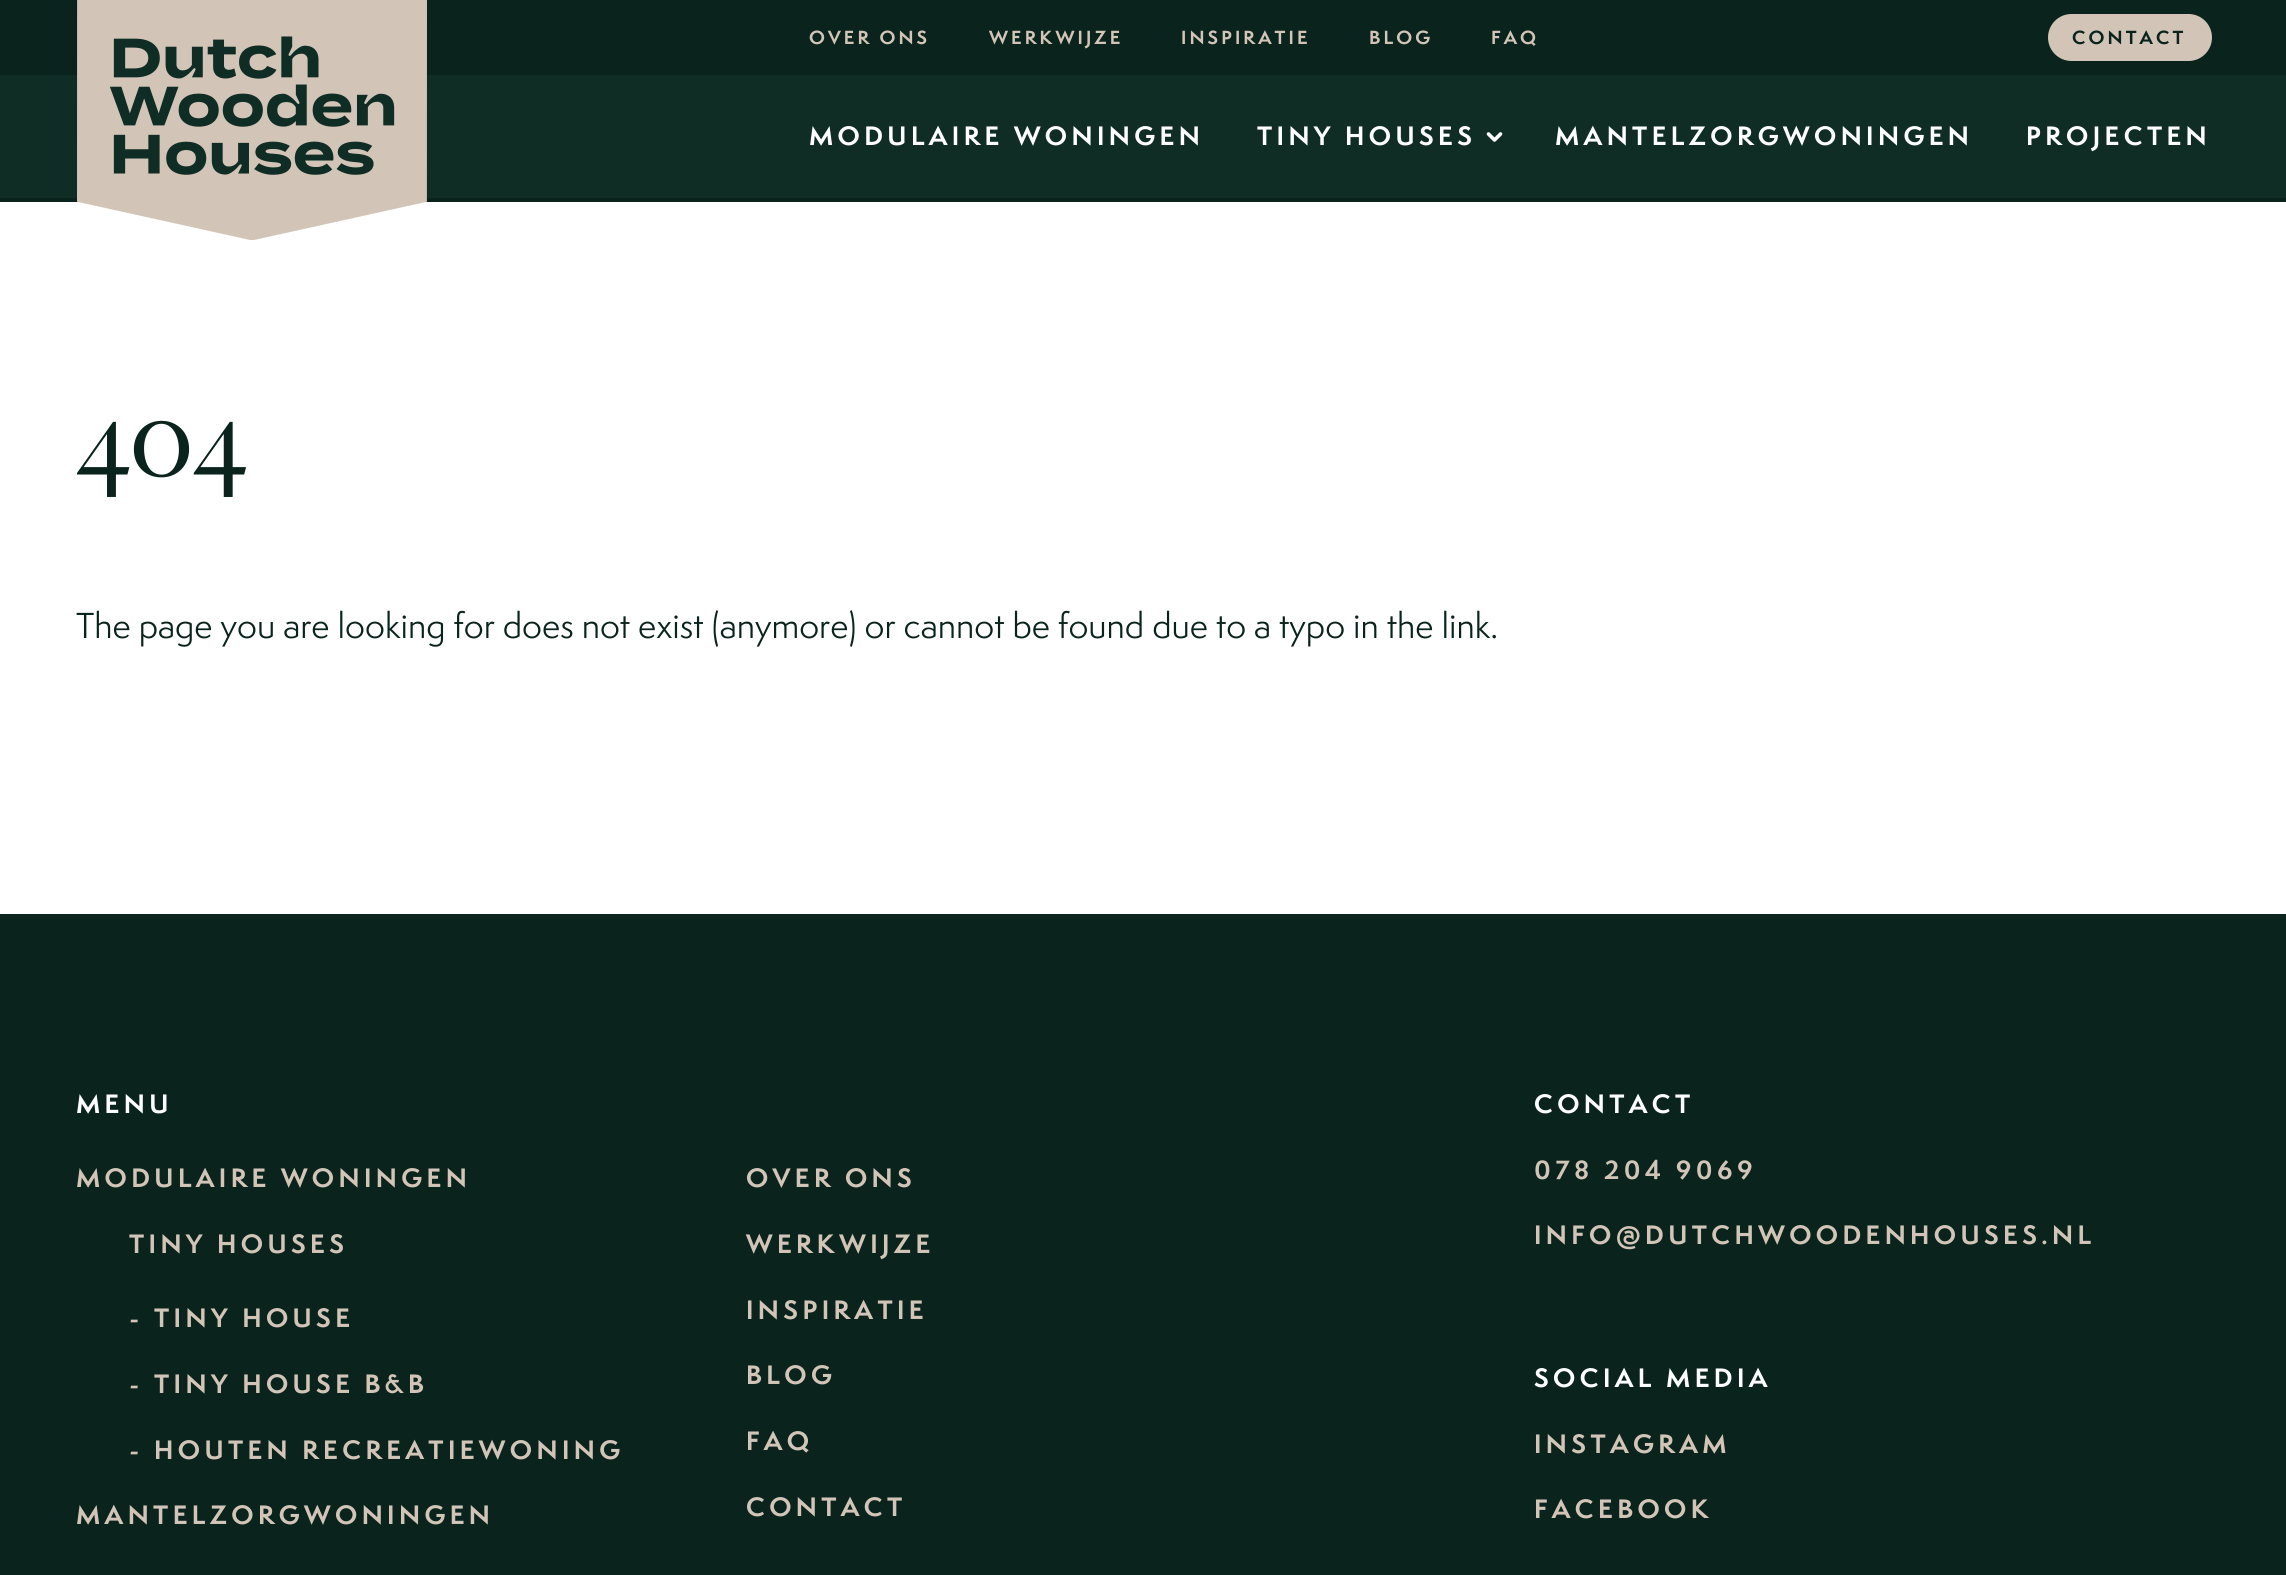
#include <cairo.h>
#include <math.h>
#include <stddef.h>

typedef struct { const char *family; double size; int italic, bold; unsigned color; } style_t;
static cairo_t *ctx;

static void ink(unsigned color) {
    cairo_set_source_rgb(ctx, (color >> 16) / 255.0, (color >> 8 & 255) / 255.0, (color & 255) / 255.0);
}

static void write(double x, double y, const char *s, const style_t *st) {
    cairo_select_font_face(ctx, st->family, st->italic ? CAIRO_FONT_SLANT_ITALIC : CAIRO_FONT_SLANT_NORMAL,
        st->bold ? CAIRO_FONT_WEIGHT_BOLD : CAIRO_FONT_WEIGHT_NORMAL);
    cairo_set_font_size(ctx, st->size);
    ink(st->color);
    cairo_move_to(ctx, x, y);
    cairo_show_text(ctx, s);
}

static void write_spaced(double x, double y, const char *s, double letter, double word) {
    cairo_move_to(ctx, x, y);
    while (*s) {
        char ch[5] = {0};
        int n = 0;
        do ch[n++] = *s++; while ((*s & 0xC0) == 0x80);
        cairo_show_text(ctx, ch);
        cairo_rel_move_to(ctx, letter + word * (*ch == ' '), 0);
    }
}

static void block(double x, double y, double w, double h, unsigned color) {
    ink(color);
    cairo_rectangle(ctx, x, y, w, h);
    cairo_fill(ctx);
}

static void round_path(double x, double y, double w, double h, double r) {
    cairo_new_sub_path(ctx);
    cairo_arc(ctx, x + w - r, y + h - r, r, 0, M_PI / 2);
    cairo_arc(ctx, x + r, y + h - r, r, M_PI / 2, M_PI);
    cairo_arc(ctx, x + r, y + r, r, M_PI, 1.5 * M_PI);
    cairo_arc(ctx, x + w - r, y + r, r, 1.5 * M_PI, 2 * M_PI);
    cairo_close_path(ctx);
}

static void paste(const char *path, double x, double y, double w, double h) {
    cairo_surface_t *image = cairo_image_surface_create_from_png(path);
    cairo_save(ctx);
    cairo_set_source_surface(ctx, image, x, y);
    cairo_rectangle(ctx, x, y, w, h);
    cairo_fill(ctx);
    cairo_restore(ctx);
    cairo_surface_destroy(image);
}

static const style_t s1 = {"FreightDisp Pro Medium", 114, 0, 0, 0x0a241d};
static const style_t s2 = {"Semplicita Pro", 33.25, 0, 0, 0x0a241d};

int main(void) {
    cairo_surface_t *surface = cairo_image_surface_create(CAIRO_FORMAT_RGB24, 2286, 1575);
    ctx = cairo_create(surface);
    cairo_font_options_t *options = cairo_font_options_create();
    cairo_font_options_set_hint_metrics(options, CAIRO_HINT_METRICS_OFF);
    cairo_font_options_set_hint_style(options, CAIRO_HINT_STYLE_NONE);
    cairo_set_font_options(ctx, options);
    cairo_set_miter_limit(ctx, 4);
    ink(0xffffff);
    cairo_paint(ctx);
    block(0, 75, 2286, 123, 0x0f2d25);
    block(0, 198, 2286, 4, 0x0a241d);
    block(0, 0, 2286, 75, 0x0a241d);
    cairo_select_font_face(ctx, "Semplicita Pro", CAIRO_FONT_SLANT_NORMAL, CAIRO_FONT_WEIGHT_BOLD);
    cairo_set_font_size(ctx, 17.5);
    ink(0xd2c5b7);
    write_spaced(809, 44, "OVER ONS", 3.1, 0);
    write_spaced(989, 44, "WERKWIJZE", 3.1, 0);
    write_spaced(1181, 44, "INSPIRATIE", 3.1, 0);
    write_spaced(1369, 44, "BLOG", 3.1, 0);
    write_spaced(1491, 44, "FAQ", 3.1, 0);
    round_path(2048, 14, 164, 47, 23.5);
    cairo_fill(ctx);
    ink(0x0a241d);
    write_spaced(2072, 44, "CONTACT", 3.1, 0);
    paste("pic1.png", 77, 0, 350, 240);
    cairo_set_font_size(ctx, 24.5);
    ink(0xffffff);
    write_spaced(809, 145, "MODULAIRE WONINGEN", 4.4, 0);
    write_spaced(1257, 145, "TINY HOUSES", 4.4, 0);
    cairo_new_path(ctx);
    cairo_move_to(ctx, 1494.5, 140);
    cairo_line_to(ctx, 1500.5, 134);
    cairo_move_to(ctx, 1494.5, 140);
    cairo_line_to(ctx, 1488.5, 134);
    cairo_set_line_width(ctx, 3.6);
    cairo_set_line_cap(ctx, CAIRO_LINE_CAP_ROUND);
    cairo_set_line_join(ctx, CAIRO_LINE_JOIN_ROUND);
    cairo_stroke(ctx);
    write_spaced(1555, 145, "MANTELZORGWONINGEN", 4.4, 0);
    write_spaced(2026, 145, "PROJECTEN", 4.4, 0);
    write(76, 476, "404", &s1);
    write(76, 638, "The page you are looking for does not exist (anymore) or cannot be found due to a typo in the link.", &s2);
    block(0, 914, 2286, 661, 0x0a241d);
    cairo_select_font_face(ctx, "Semplicita Pro", CAIRO_FONT_SLANT_NORMAL, CAIRO_FONT_WEIGHT_BOLD);
    cairo_set_font_size(ctx, 24.5);
    ink(0xffffff);
    write_spaced(76, 1113, "MENU", 4.4, 0);
    ink(0xd2c5b7);
    write_spaced(76, 1187, "MODULAIRE WONINGEN", 4.4, 0);
    write_spaced(129, 1253, "TINY HOUSES", 4.4, 0);
    write_spaced(129, 1327, "- TINY HOUSE", 4.4, 0);
    write_spaced(129, 1393, "- TINY HOUSE B&B", 4.4, 0);
    write_spaced(129, 1459, "- HOUTEN RECREATIEWONING", 4.4, 0);
    write_spaced(76, 1524, "MANTELZORGWONINGEN", 4.4, 0);
    write_spaced(746, 1187, "OVER ONS", 4.4, 0);
    write_spaced(746, 1253, "WERKWIJZE", 4.4, 0);
    write_spaced(746, 1319, "INSPIRATIE", 4.4, 0);
    write_spaced(746, 1384, "BLOG", 4.4, 0);
    write_spaced(746, 1450, "FAQ", 4.4, 0);
    write_spaced(746, 1516, "CONTACT", 4.4, 0);
    ink(0xffffff);
    write_spaced(1534, 1113, "CONTACT", 4.4, 0);
    ink(0xd2c5b7);
    write_spaced(1534, 1179, "078 204 9069", 4.4, 0);
    write_spaced(1534, 1244, "INFO@DUTCHWOODENHOUSES.NL", 4.4, 0);
    ink(0xffffff);
    write_spaced(1534, 1387, "SOCIAL MEDIA", 4.4, 0);
    ink(0xd2c5b7);
    write_spaced(1534, 1453, "INSTAGRAM", 4.4, 0);
    write_spaced(1534, 1518, "FACEBOOK", 4.4, 0);
    cairo_surface_write_to_png(surface, "screenshot.png");
    cairo_font_options_destroy(options);
    cairo_destroy(ctx);
    cairo_surface_destroy(surface);
    return 0;
}
